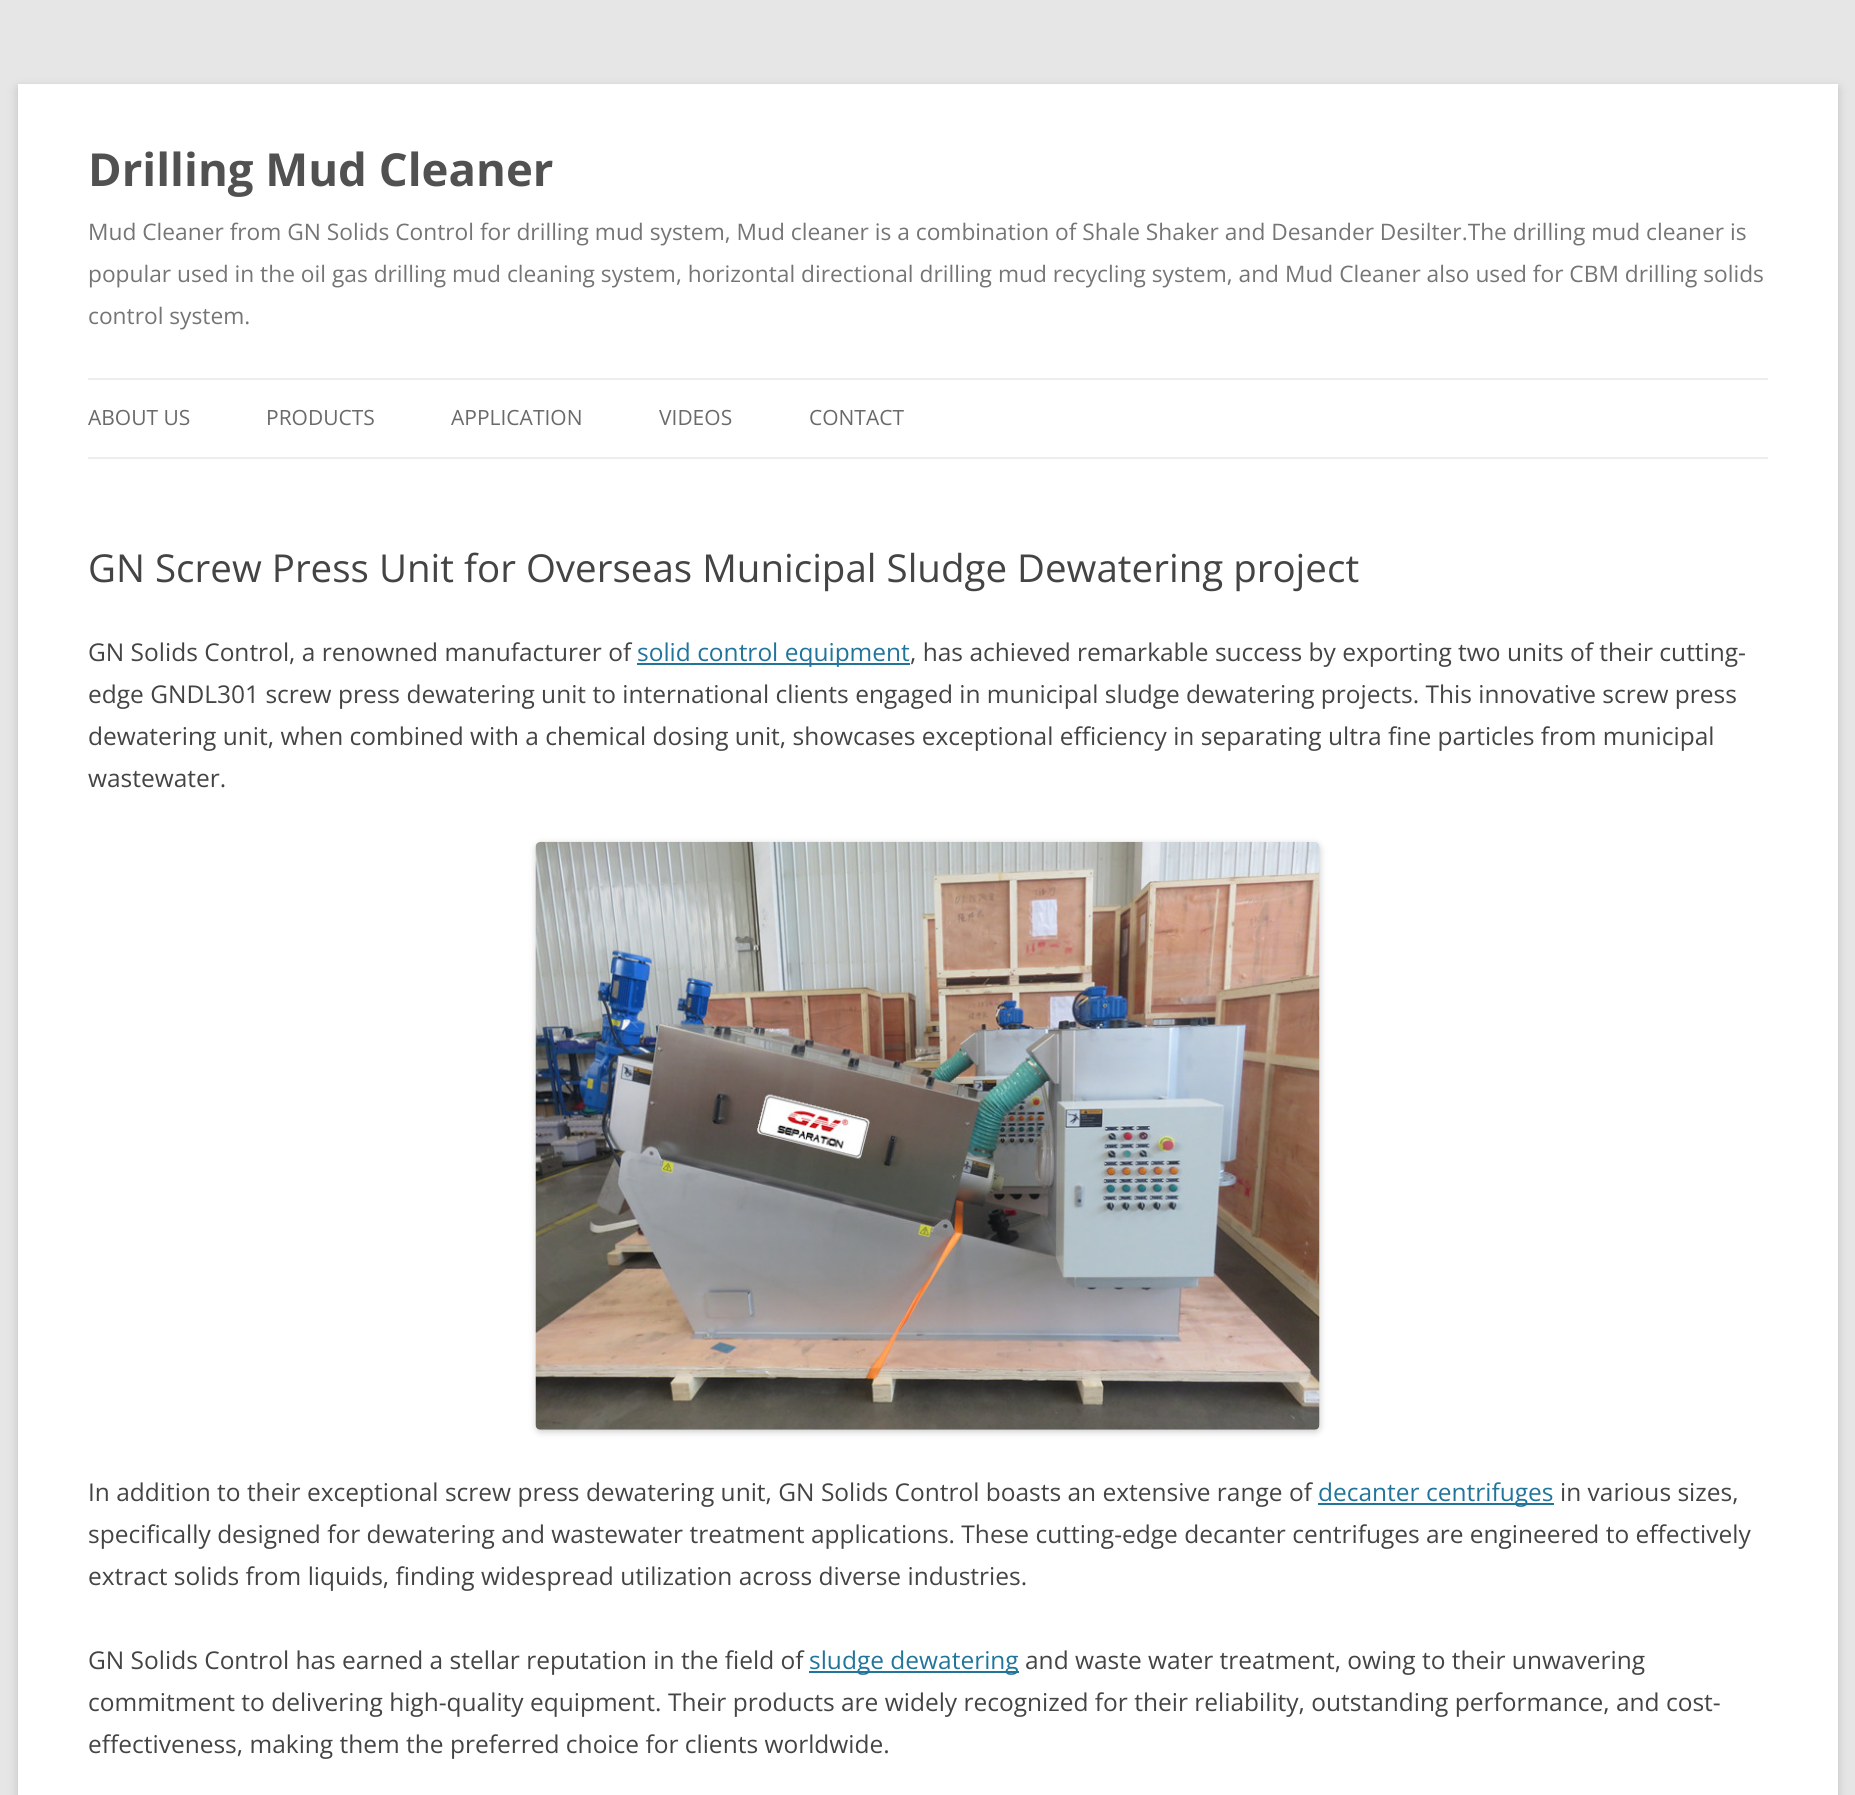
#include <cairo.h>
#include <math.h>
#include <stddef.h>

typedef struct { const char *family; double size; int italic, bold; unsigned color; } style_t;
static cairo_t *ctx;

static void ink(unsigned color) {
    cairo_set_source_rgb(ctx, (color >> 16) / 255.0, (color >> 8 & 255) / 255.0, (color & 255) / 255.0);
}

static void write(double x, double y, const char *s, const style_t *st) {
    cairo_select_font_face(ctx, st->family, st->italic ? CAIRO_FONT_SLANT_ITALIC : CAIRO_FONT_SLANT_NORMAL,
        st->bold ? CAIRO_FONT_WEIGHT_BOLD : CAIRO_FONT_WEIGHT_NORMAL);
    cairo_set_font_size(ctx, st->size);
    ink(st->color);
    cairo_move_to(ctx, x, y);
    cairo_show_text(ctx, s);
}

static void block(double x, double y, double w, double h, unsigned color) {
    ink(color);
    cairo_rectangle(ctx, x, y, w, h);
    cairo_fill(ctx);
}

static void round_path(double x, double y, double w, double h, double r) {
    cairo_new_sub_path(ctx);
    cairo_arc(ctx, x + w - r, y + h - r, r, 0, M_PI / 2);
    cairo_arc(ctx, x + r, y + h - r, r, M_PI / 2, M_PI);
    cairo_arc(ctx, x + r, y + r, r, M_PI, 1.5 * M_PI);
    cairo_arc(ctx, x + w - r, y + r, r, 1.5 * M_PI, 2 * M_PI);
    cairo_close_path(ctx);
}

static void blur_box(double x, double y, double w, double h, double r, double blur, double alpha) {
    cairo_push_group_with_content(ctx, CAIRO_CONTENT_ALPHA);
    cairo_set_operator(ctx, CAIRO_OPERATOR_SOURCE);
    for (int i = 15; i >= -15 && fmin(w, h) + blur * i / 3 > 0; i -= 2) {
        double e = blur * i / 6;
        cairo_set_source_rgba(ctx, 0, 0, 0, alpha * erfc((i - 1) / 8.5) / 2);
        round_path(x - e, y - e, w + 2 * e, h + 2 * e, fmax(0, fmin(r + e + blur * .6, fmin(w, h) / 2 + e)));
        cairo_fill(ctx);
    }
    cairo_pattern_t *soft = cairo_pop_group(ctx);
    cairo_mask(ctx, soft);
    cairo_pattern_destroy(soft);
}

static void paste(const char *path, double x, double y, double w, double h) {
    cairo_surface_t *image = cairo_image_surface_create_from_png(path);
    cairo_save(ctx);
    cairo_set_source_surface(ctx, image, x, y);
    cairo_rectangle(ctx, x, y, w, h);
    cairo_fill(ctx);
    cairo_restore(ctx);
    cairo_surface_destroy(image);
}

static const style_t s1 = {"Open Sans", 45.5, 0, 1, 0x515151};
static const style_t s2 = {"Open Sans", 22.75, 0, 0, 0x757575};
static const style_t s3 = {"Open Sans", 21, 0, 0, 0x6a6a6a};
static const style_t s4 = {"Open Sans", 38.5, 0, 0, 0x444444};
static const style_t s5 = {"Open Sans", 24.5, 0, 0, 0x444444};
static const style_t s6 = {"Open Sans", 24.5, 0, 0, 0x21759b};

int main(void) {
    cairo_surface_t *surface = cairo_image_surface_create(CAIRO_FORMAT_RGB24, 1855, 1795);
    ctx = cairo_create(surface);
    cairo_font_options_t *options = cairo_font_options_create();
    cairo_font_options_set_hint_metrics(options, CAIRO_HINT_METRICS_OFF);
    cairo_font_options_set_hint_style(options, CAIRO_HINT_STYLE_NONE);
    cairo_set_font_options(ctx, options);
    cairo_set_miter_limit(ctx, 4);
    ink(0xe6e6e6);
    cairo_paint(ctx);
    ink(0x646464);
    blur_box(18, 88, 1820, 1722, 0, 5, 0.3);
    block(18, 84, 1820, 1711, 0xffffff);
    write(88, 186, "Drilling Mud Cleaner", &s1);
    write(88, 240, "Mud Cleaner from GN Solids Control for drilling mud system, Mud cleaner is a combination of Shale Shaker and Desander Desilter.The drilling mud cleaner is", &s2);
    write(88, 282, "popular used in the oil gas drilling mud cleaning system, horizontal directional drilling mud recycling system, and Mud Cleaner also used for CBM drilling solids", &s2);
    write(88, 324, "control system.", &s2);
    block(88, 378, 1680, 2, 0xededed);
    block(88, 457, 1680, 2, 0xededed);
    write(88, 425, "ABOUT US", &s3);
    write(266, 425, "PRODUCTS", &s3);
    write(451, 425, "APPLICATION", &s3);
    write(659, 425, "VIDEOS", &s3);
    write(809, 425, "CONTACT", &s3);
    write(88, 582, "GN Screw Press Unit for Overseas Municipal Sludge Dewatering project", &s4);
    write(88, 661, "GN Solids Control, a renowned manufacturer of", &s5);
    block(637, 663, 273, 2, 0x21759b);
    write(637, 661, "solid control equipment", &s6);
    write(910, 661, ", has achieved remarkable success by exporting two units of their cutting-", &s5);
    write(88, 703, "edge GNDL301 screw press dewatering unit to international clients engaged in municipal sludge dewatering projects. This innovative screw press", &s5);
    write(88, 745, "dewatering unit, when combined with a chemical dosing unit, showcases exceptional efficiency in separating ultra fine particles from municipal", &s5);
    write(88, 787, "wastewater.", &s5);
    ink(0x000000);
    blur_box(536, 844, 784, 588, 5, 3.5, 0.2);
    paste("pic1.png", 535, 841, 785, 589);
    write(88, 1501, "In addition to their exceptional screw press dewatering unit, GN Solids Control boasts an extensive range of", &s5);
    block(1318, 1503, 236, 2, 0x21759b);
    write(1318, 1501, "decanter centrifuges", &s6);
    write(1560, 1501, "in various sizes,", &s5);
    write(88, 1543, "specifically designed for dewatering and wastewater treatment applications. These cutting-edge decanter centrifuges are engineered to effectively", &s5);
    write(88, 1585, "extract solids from liquids, finding widespread utilization across diverse industries.", &s5);
    write(88, 1669, "GN Solids Control has earned a stellar reputation in the field of", &s5);
    block(809, 1671, 210, 2, 0x21759b);
    write(809, 1669, "sludge dewatering", &s6);
    write(1025, 1669, "and waste water treatment, owing to their unwavering", &s5);
    write(88, 1711, "commitment to delivering high-quality equipment. Their products are widely recognized for their reliability, outstanding performance, and cost-", &s5);
    write(88, 1753, "effectiveness, making them the preferred choice for clients worldwide.", &s5);
    cairo_surface_write_to_png(surface, "screenshot.png");
    cairo_font_options_destroy(options);
    cairo_destroy(ctx);
    cairo_surface_destroy(surface);
    return 0;
}
